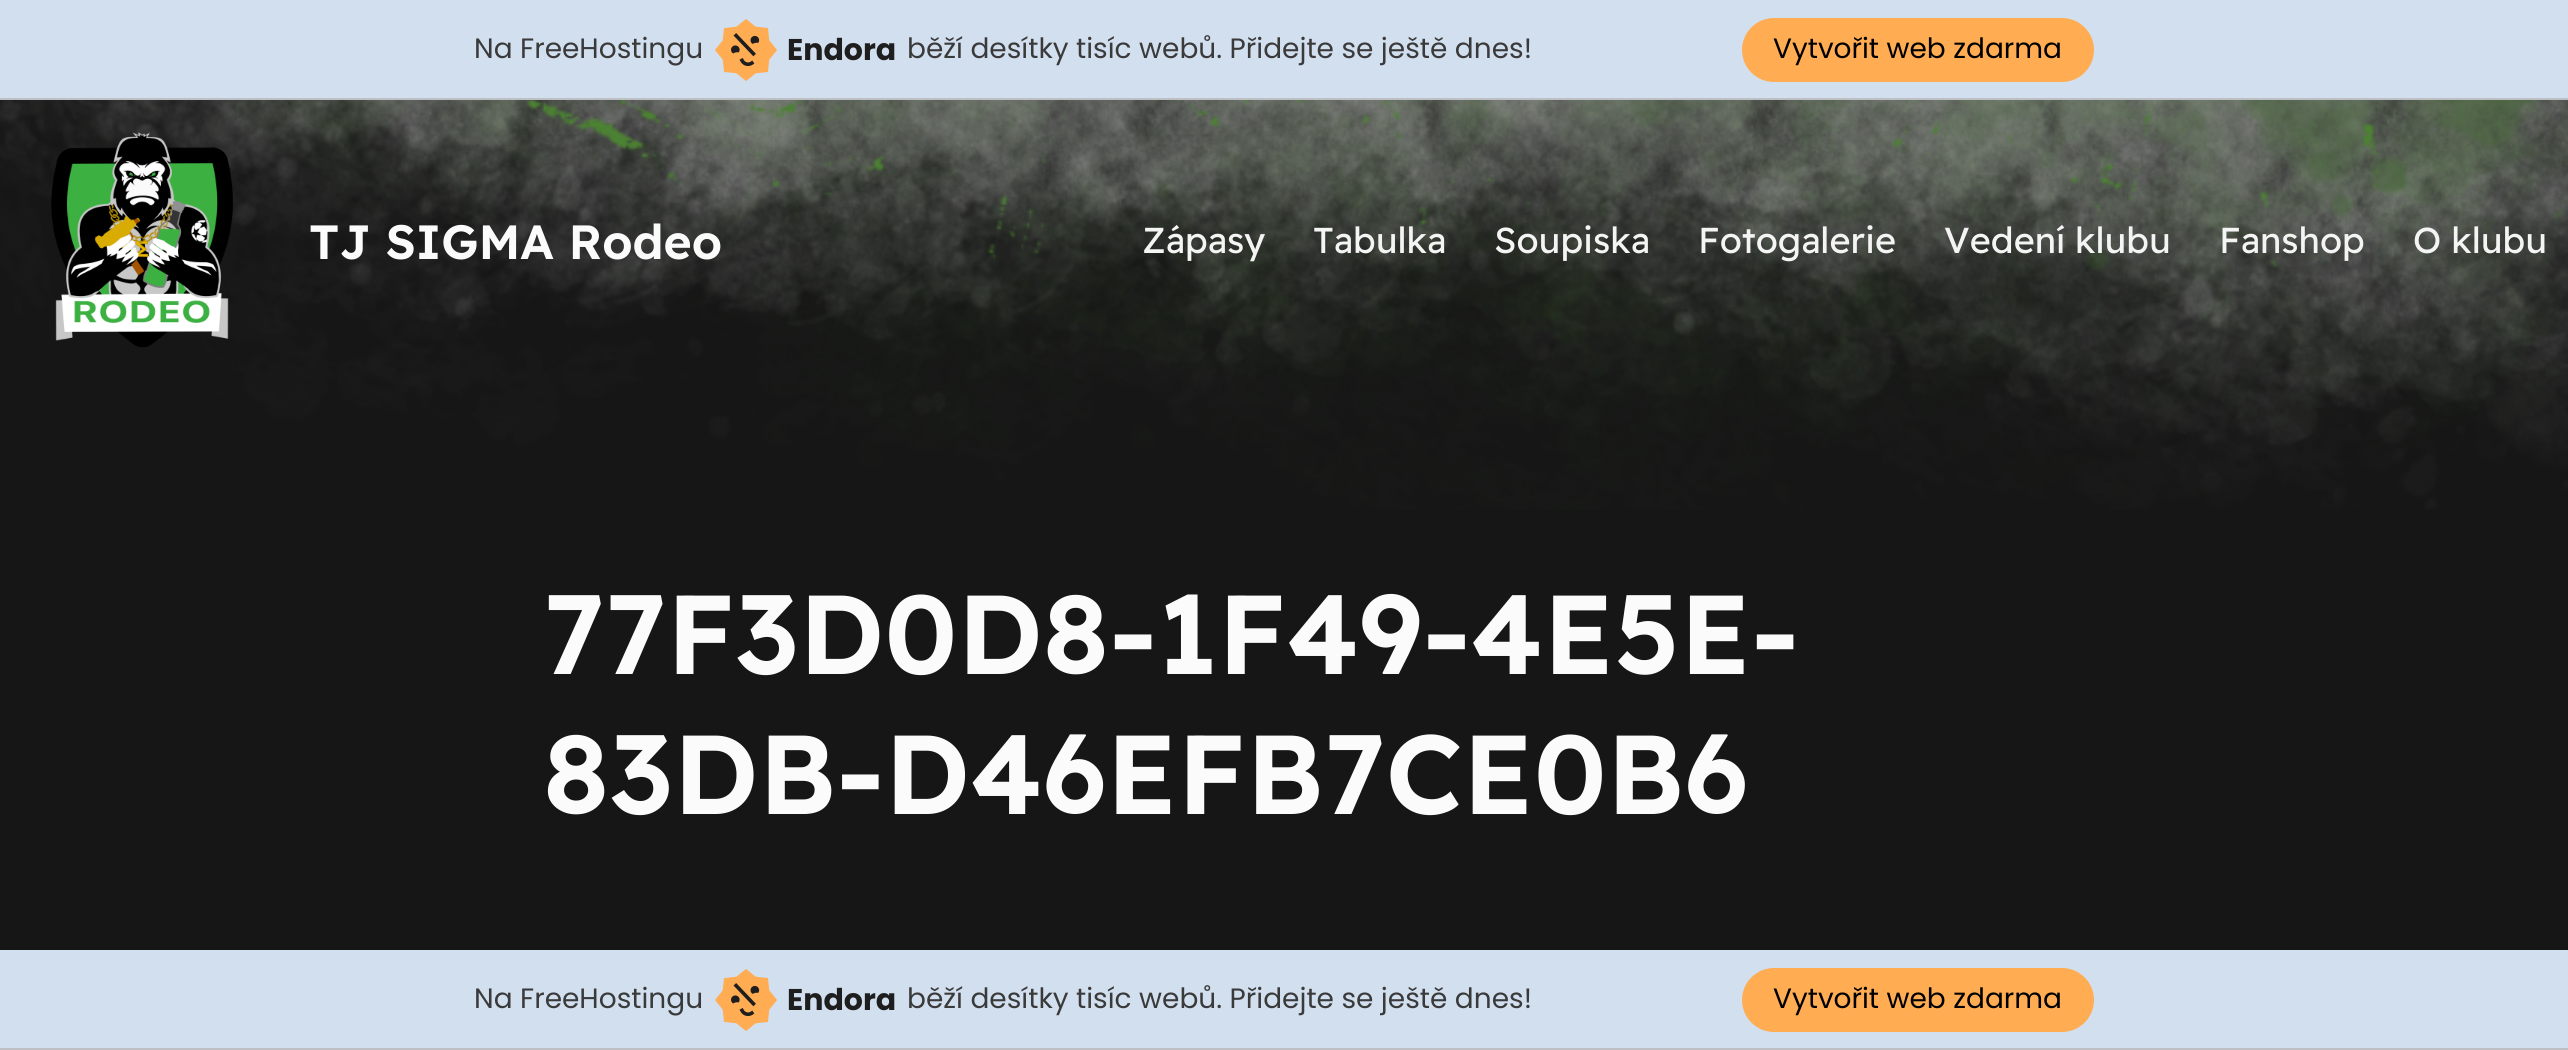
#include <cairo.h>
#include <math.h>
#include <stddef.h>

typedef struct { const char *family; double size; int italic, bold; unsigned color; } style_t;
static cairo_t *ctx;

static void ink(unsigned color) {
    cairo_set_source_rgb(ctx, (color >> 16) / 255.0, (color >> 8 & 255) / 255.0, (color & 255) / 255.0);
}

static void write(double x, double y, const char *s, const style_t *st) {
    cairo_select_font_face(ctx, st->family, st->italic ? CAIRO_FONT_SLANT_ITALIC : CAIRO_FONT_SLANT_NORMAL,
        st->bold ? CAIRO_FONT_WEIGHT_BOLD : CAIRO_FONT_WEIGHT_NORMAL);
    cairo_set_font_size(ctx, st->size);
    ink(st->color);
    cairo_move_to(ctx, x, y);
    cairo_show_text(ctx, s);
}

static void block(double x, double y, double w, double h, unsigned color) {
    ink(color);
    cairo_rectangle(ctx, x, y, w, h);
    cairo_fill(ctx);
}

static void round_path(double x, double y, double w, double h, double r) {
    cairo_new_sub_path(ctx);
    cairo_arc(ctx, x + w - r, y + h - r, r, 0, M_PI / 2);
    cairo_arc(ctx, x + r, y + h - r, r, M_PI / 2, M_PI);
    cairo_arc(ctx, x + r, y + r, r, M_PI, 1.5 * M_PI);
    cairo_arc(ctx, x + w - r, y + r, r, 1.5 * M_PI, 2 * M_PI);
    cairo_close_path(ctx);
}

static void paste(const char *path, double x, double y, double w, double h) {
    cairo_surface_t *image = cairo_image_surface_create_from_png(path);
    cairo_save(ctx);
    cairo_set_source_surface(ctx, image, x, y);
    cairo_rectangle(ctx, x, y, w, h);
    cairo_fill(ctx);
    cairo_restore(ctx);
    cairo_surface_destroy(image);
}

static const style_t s1 = {"Poppins", 28, 0, 0, 0x3a3a3a};
static const style_t s2 = {"Poppins", 30, 0, 1, 0x1e1e1e};
static const style_t s3 = {"Poppins", 28, 0, 0, 0x000000};
static const style_t s4 = {"Readex Pro SemiBold", 48, 0, 0, 0xfbfbfb};
static const style_t s5 = {"Readex Pro", 36, 0, 0, 0xf4f4f4};
static const style_t s6 = {"Readex Pro SemiBold", 112, 0, 0, 0xfbfbfb};

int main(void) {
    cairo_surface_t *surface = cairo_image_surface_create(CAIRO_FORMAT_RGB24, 2568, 1050);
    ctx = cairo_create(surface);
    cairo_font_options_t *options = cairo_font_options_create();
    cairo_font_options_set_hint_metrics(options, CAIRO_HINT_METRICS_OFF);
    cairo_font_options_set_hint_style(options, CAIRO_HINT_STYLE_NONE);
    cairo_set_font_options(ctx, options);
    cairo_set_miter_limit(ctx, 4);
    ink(0x161616);
    cairo_paint(ctx);
    block(0, 0, 2568, 98, 0xd2dfef);
    block(0, 98, 2568, 2, 0xbebfc4);
    write(474, 58, "Na FreeHostingu", &s1);
    paste("pic1.png", 715, 19, 62, 62);
    write(787, 60, "Endora", &s2);
    write(907, 58, "běží desítky tisíc webů. Přidejte se ještě dnes!", &s1);
    ink(0xffac52);
    round_path(1742, 18, 352, 64, 32);
    cairo_fill(ctx);
    write(1773, 58, "Vytvořit web zdarma", &s3);
    paste("pic2.png", 0, 100, 2568, 409);
    paste("pic3.png", 51, 132, 182, 216);
    write(309, 259, "TJ SIGMA Rodeo", &s4);
    write(1142, 253, "Zápasy", &s5);
    write(1313, 253, "Tabulka", &s5);
    write(1494, 253, "Soupiska", &s5);
    write(1698, 253, "Fotogalerie", &s5);
    write(1944, 253, "Vedení klubu", &s5);
    write(2219, 253, "Fanshop", &s5);
    write(2413, 253, "O klubu", &s5);
    write(543, 674, "77F3D0D8-1F49-4E5E-", &s6);
    write(543, 814, "83DB-D46EFB7CE0B6", &s6);
    block(0, 950, 2568, 98, 0xd2dfef);
    block(0, 1048, 2568, 2, 0xbebfc4);
    write(474, 1008, "Na FreeHostingu", &s1);
    paste("pic1.png", 715, 969, 62, 62);
    write(787, 1010, "Endora", &s2);
    write(907, 1008, "běží desítky tisíc webů. Přidejte se ještě dnes!", &s1);
    ink(0xffac52);
    round_path(1742, 968, 352, 64, 32);
    cairo_fill(ctx);
    write(1773, 1008, "Vytvořit web zdarma", &s3);
    cairo_surface_write_to_png(surface, "screenshot.png");
    cairo_font_options_destroy(options);
    cairo_destroy(ctx);
    cairo_surface_destroy(surface);
    return 0;
}
